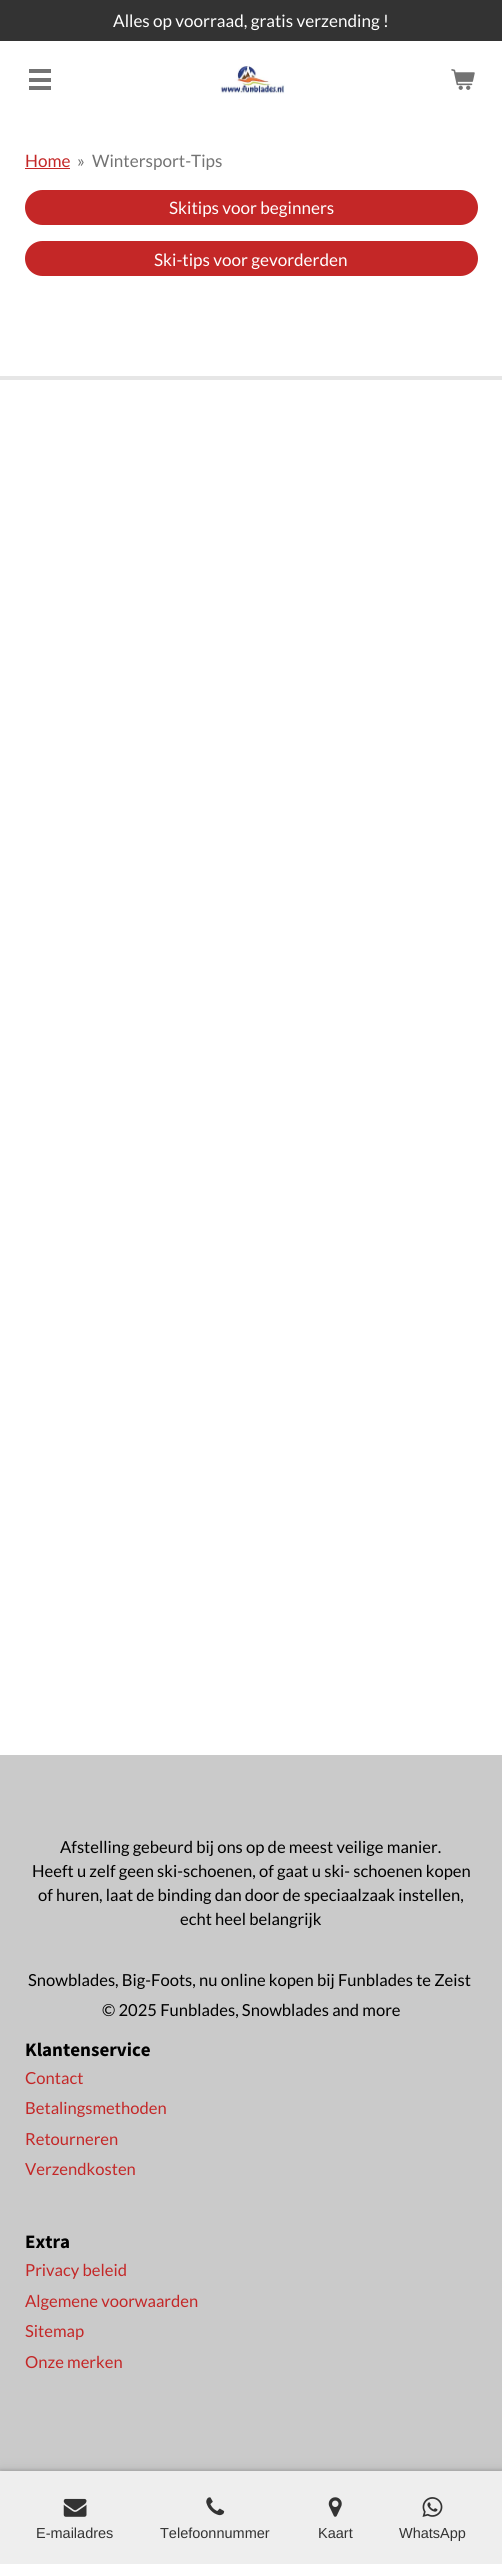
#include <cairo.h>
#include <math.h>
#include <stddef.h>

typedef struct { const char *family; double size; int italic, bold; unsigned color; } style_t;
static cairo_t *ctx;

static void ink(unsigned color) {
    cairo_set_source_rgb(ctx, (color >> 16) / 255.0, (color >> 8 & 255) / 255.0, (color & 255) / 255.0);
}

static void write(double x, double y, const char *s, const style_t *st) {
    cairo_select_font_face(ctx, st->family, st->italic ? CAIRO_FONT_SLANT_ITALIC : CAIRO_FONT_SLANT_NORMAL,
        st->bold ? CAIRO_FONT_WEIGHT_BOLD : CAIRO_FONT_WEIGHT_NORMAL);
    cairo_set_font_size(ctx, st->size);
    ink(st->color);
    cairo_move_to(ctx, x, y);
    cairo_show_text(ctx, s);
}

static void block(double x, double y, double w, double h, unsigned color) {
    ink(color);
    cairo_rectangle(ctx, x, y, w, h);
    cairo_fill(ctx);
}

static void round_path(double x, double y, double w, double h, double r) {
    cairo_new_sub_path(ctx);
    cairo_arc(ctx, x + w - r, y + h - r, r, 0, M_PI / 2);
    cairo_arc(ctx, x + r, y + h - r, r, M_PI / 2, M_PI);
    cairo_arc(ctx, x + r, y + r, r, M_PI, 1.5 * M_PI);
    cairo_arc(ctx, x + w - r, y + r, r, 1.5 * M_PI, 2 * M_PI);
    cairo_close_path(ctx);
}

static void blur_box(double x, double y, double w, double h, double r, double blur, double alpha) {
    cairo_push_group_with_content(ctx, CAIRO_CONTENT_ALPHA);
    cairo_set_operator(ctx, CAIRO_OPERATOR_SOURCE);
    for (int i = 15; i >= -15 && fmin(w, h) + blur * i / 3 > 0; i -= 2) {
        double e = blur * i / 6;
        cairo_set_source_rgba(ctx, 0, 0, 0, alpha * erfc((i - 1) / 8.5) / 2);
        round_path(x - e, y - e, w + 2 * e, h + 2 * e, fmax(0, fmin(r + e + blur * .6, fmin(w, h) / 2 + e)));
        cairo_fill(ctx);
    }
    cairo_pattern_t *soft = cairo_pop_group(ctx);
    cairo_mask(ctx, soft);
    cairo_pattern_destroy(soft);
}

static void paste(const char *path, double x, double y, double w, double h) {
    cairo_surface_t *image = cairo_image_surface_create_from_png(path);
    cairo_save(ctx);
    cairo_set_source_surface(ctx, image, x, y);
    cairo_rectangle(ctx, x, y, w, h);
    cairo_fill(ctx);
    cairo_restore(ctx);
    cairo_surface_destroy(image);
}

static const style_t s1 = {"Lato", 17.1, 0, 0, 0xffffff};
static const style_t s2 = {"Lato", 17.1, 0, 0, 0xc42727};
static const style_t s3 = {"Lato", 17.1, 0, 0, 0x737373};
static const style_t s4 = {"Lato", 16.6, 0, 0, 0x000000};
static const style_t s5 = {"Source Sans Pro", 19, 0, 1, 0x000000};
static const style_t s6 = {"Lato", 16.6, 0, 0, 0xc42727};
static const style_t s7 = {"Liberation Sans", 14.5, 0, 0, 0x333333};

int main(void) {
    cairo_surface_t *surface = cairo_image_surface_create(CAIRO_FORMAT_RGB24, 502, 2564);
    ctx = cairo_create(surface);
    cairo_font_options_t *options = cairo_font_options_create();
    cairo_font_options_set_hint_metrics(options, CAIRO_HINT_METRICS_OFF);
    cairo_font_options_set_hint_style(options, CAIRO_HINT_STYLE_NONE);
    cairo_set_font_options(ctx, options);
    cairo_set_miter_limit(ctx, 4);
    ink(0xffffff);
    cairo_paint(ctx);
    block(0, 0, 502, 41, 0x333333);
    write(113, 27, "Alles op voorraad, gratis verzending !", &s1);
    block(29, 78, 22, 4, 0x737373);
    block(29, 69, 22, 4, 0x737373);
    block(29, 86, 22, 4, 0x737373);
    paste("pic1.png", 220, 66, 65, 28);
    paste("pic2.png", 451, 69, 24, 21);
    write(25, 167, "Home", &s2);
    block(25, 168, 45, 1, 0xc42727);
    write(77, 167, "»", &s3);
    write(92, 167, "Wintersport-Tips", &s3);
    ink(0xc42727);
    round_path(25, 190, 453, 35, 17.5);
    cairo_fill(ctx);
    write(169, 214, "Skitips voor beginners", &s1);
    ink(0xc42727);
    round_path(25, 241, 453, 35, 17.5);
    cairo_fill(ctx);
    write(154, 266, "Ski-tips voor gevorderden", &s1);
    block(0, 376, 502, 4, 0xe6e6e6);
    block(0, 1755, 502, 716, 0xcacaca);
    write(60, 1853, "Afstelling gebeurd bij ons op de meest veilige manier.", &s4);
    write(32, 1877, "Heeft u zelf geen ski-schoenen, of gaat u ski- schoenen kopen", &s4);
    write(38, 1901, "of huren, laat de binding dan door de speciaalzaak instellen,", &s4);
    write(180, 1925, "echt heel belangrijk", &s4);
    write(28, 1986, "Snowblades, Big-Foots, nu online kopen bij Funblades te Zeist", &s4);
    write(102, 2016, "© 2025 Funblades, Snowblades and more", &s4);
    write(25, 2056, "Klantenservice", &s5);
    write(25, 2084, "Contact", &s6);
    write(25, 2114, "Betalingsmethoden", &s6);
    write(25, 2145, "Retourneren", &s6);
    write(25, 2175, "Verzendkosten", &s6);
    write(25, 2248, "Extra", &s5);
    write(25, 2276, "Privacy beleid", &s6);
    write(25, 2307, "Algemene voorwaarden", &s6);
    write(25, 2337, "Sitemap", &s6);
    write(25, 2368, "Onze merken", &s6);
    ink(0x000000);
    blur_box(0, 2469, 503, 94, 0, 1, 0.1);
    blur_box(0, 2469, 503, 94, 0, 6, 0.1);
    block(0, 2471, 502, 93, 0xeeeeee);
    paste("pic3.png", 63, 2498, 24, 19);
    write(36, 2538, "E-mailadres", &s7);
    paste("pic4.png", 206, 2497, 19, 19);
    write(160, 2538, "Telefoonnummer", &s7);
    paste("pic5.png", 328, 2497, 14, 20);
    write(318, 2538, "Kaart", &s7);
    paste("pic6.png", 422, 2497, 21, 20);
    write(399, 2538, "WhatsApp", &s7);
    cairo_surface_write_to_png(surface, "screenshot.png");
    cairo_font_options_destroy(options);
    cairo_destroy(ctx);
    cairo_surface_destroy(surface);
    return 0;
}
